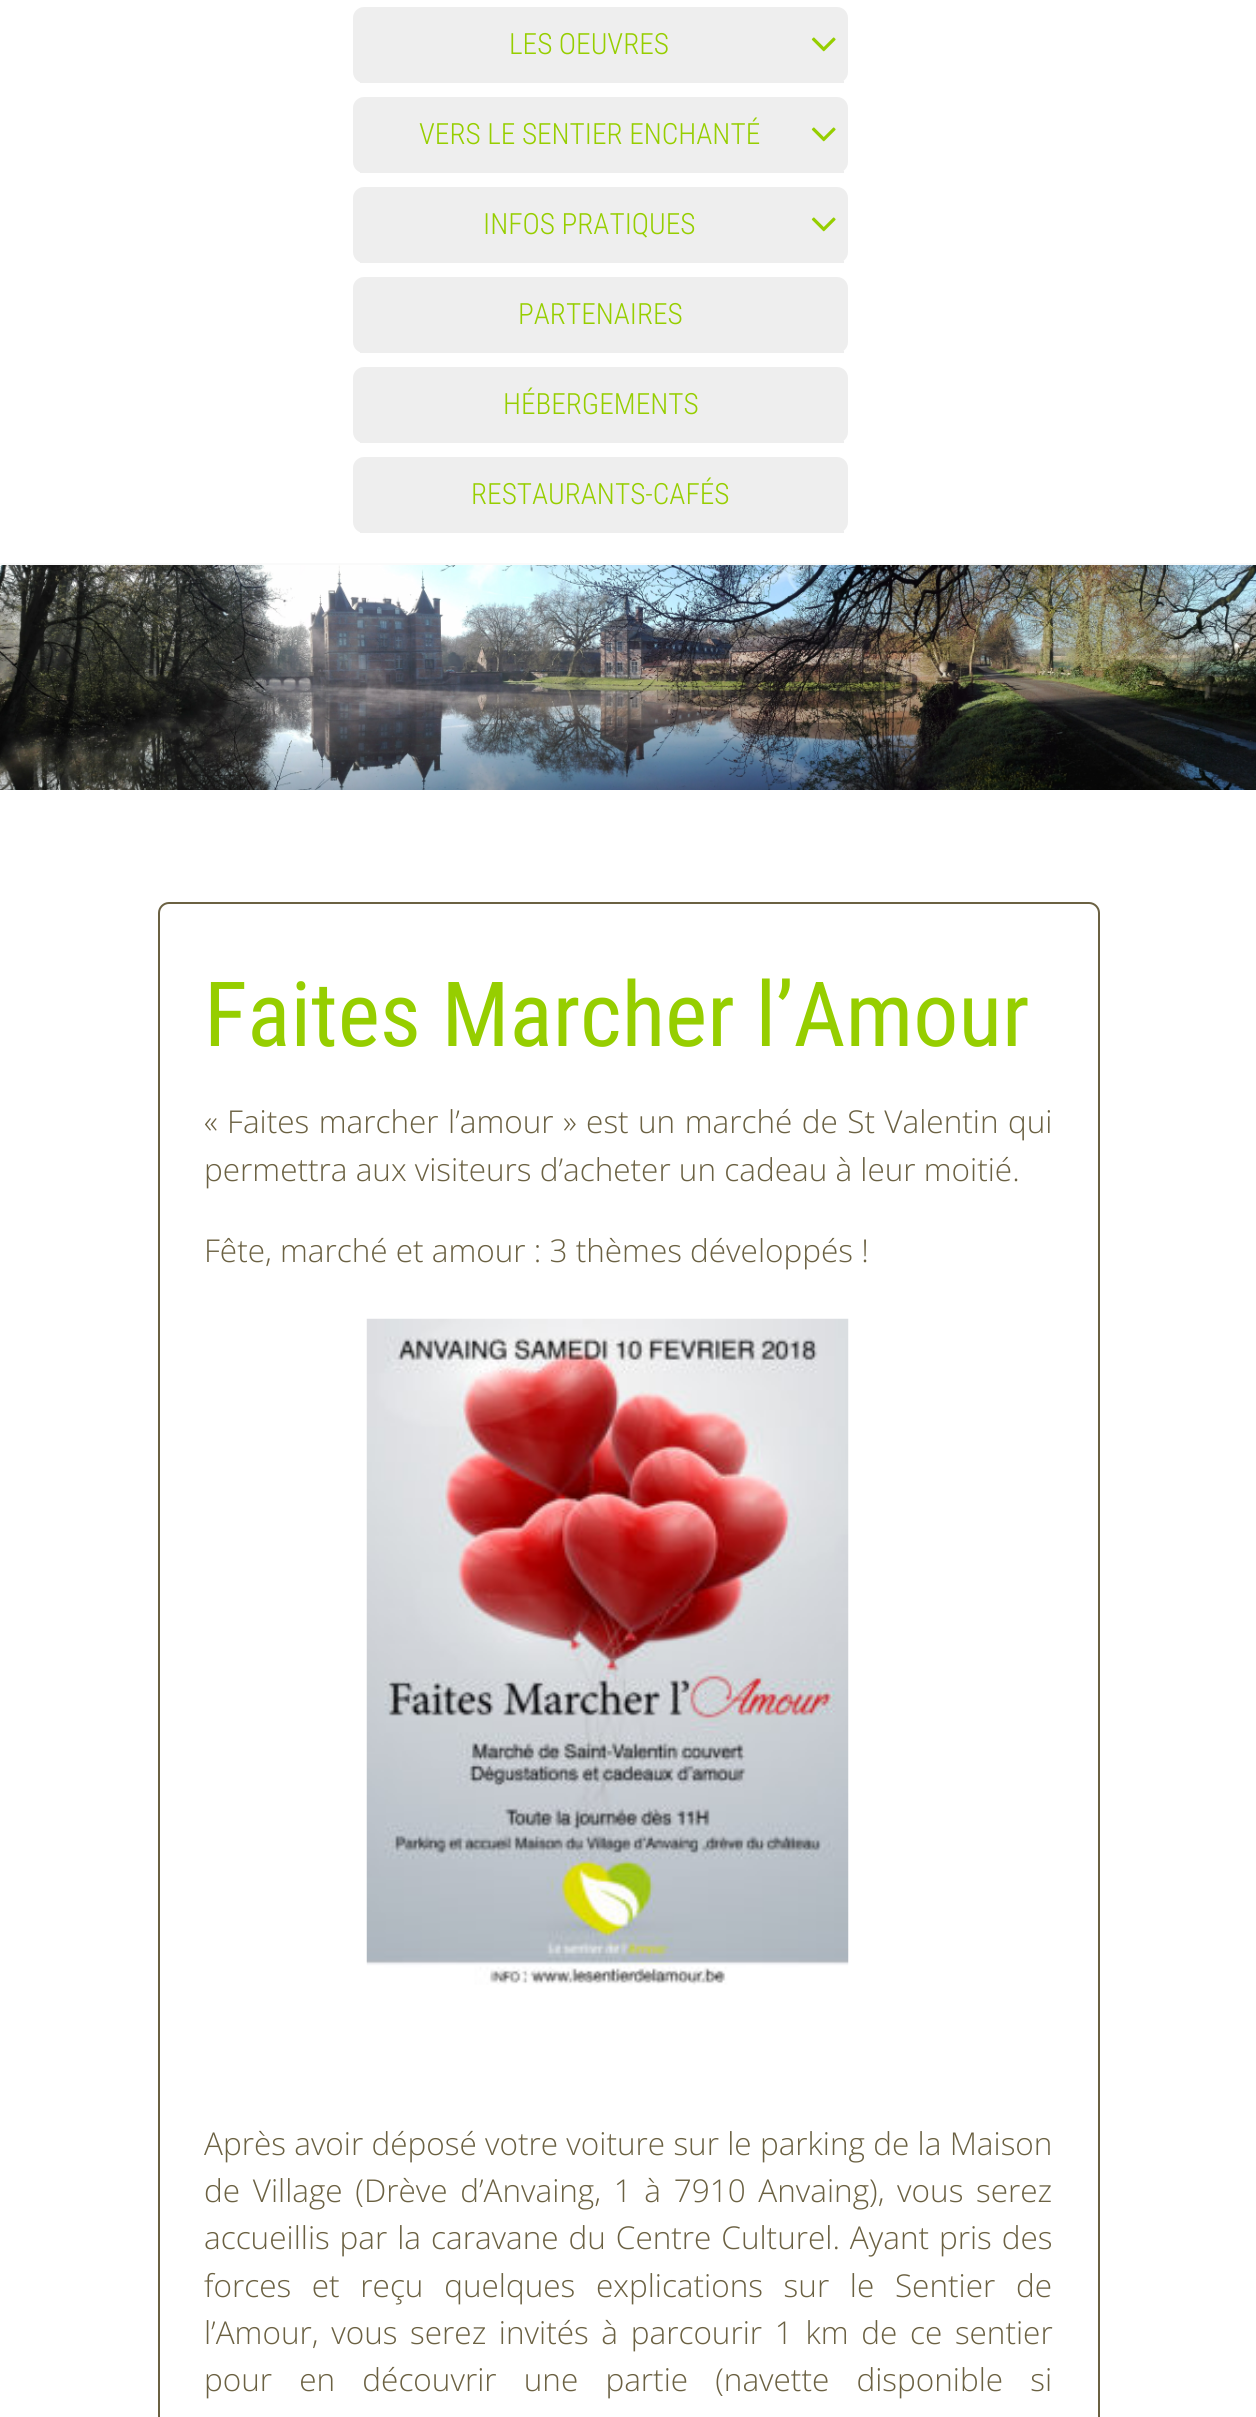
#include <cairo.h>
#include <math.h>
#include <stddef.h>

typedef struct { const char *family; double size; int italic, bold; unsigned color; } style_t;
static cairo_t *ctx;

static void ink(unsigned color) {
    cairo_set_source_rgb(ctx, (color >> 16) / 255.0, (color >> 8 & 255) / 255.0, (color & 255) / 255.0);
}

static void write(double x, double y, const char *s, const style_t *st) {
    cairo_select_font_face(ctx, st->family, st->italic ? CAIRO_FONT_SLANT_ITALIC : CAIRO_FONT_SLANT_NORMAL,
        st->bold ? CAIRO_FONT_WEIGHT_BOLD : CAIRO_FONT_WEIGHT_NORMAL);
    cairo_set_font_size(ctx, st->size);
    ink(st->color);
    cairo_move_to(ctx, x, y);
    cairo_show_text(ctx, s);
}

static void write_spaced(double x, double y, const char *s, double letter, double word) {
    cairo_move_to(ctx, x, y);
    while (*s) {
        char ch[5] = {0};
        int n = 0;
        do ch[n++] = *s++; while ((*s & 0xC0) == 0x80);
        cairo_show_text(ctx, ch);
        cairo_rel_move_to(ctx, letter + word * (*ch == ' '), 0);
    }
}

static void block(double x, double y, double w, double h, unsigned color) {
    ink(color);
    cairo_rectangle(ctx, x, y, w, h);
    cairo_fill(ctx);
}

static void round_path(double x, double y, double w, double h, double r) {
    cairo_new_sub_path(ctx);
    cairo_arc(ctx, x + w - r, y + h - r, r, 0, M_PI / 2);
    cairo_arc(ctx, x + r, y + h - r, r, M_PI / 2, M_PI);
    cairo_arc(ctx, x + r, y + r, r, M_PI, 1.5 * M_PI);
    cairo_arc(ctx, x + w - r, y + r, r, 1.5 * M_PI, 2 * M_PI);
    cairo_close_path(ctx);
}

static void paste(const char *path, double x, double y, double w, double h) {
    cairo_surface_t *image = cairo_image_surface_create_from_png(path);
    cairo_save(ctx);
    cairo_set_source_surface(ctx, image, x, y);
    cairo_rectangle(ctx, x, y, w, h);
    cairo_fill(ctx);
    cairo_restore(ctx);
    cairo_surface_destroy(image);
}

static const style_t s1 = {"Roboto Condensed Light", 29.25, 0, 0, 0x96ce00};
static const style_t s2 = {"Roboto Condensed", 90, 0, 0, 0x96ce00};
static const style_t s3 = {"Open Sans Light", 31.5, 0, 0, 0x6b6142};

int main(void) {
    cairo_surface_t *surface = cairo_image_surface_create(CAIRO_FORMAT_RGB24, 1256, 2417);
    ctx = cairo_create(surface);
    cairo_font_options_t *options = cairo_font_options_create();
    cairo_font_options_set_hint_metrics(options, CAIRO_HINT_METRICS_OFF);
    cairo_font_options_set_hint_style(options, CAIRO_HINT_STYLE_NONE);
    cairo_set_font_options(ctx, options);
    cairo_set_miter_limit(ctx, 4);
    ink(0xffffff);
    cairo_paint(ctx);
    block(0, 563, 1256, 2, 0xfafafa);
    ink(0xeeeeee);
    round_path(353, 7, 495, 76, 11);
    cairo_fill(ctx);
    block(360, 81, 484, 2, 0xeeeeee);
    write(509, 54, "LES OEUVRES", &s1);
    paste("pic1.png", 811, 37, 25, 15);
    ink(0xeeeeee);
    round_path(353, 97, 495, 76, 11);
    cairo_fill(ctx);
    block(360, 171, 484, 2, 0xeeeeee);
    write(419, 144, "VERS LE SENTIER ENCHANTÉ", &s1);
    paste("pic1.png", 811, 127, 25, 15);
    ink(0xeeeeee);
    round_path(353, 187, 495, 76, 11);
    cairo_fill(ctx);
    block(360, 261, 484, 2, 0xeeeeee);
    write(483, 234, "INFOS PRATIQUES", &s1);
    paste("pic1.png", 811, 217, 25, 15);
    ink(0xeeeeee);
    round_path(353, 277, 495, 76, 11);
    cairo_fill(ctx);
    block(360, 351, 484, 2, 0xeeeeee);
    write(518, 324, "PARTENAIRES", &s1);
    ink(0xeeeeee);
    round_path(353, 367, 495, 76, 11);
    cairo_fill(ctx);
    block(360, 441, 484, 2, 0xeeeeee);
    write(503, 414, "HÉBERGEMENTS", &s1);
    ink(0xeeeeee);
    round_path(353, 457, 495, 76, 11);
    cairo_fill(ctx);
    block(360, 531, 484, 2, 0xeeeeee);
    write(471, 504, "RESTAURANTS-CAFÉS", &s1);
    paste("pic2.png", 0, 565, 1256, 225);
    round_path(159, 903, 940, 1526, 10);
    ink(0x6b6142);
    cairo_stroke(ctx);
    write(204, 1046, "Faites Marcher l’Amour", &s2);
    cairo_select_font_face(ctx, "Open Sans Light", CAIRO_FONT_SLANT_NORMAL, CAIRO_FONT_WEIGHT_NORMAL);
    cairo_set_font_size(ctx, 31.5);
    ink(0x6b6142);
    write_spaced(204, 1133, "« Faites marcher l’amour » est un marché de St Valentin qui", 0, 1.25);
    write(204, 1181, "permettra aux visiteurs d’acheter un cadeau à leur moitié.", &s3);
    write(204, 1262, "Fête, marché et amour : 3 thèmes développés !", &s3);
    paste("pic3.png", 366, 1318, 483, 667);
    write_spaced(204, 2155, "Après avoir déposé votre voiture sur le parking de la Maison", 0, 0.1);
    write_spaced(204, 2202, "de Village (Drève d’Anvaing, 1 à 7910 Anvaing), vous serez", 0, 4.5);
    write_spaced(204, 2249, "accueillis par la caravane du Centre Culturel. Ayant pris des", 0, 1.75);
    write_spaced(204, 2297, "forces et reçu quelques explications sur le Sentier de", 0, 12.5);
    write_spaced(204, 2344, "l’Amour, vous serez invités à parcourir 1 km de ce sentier", 0, 4.5);
    write_spaced(204, 2391, "pour en découvrir une partie (navette disponible si", 0, 19);
    cairo_surface_write_to_png(surface, "screenshot.png");
    cairo_font_options_destroy(options);
    cairo_destroy(ctx);
    cairo_surface_destroy(surface);
    return 0;
}
